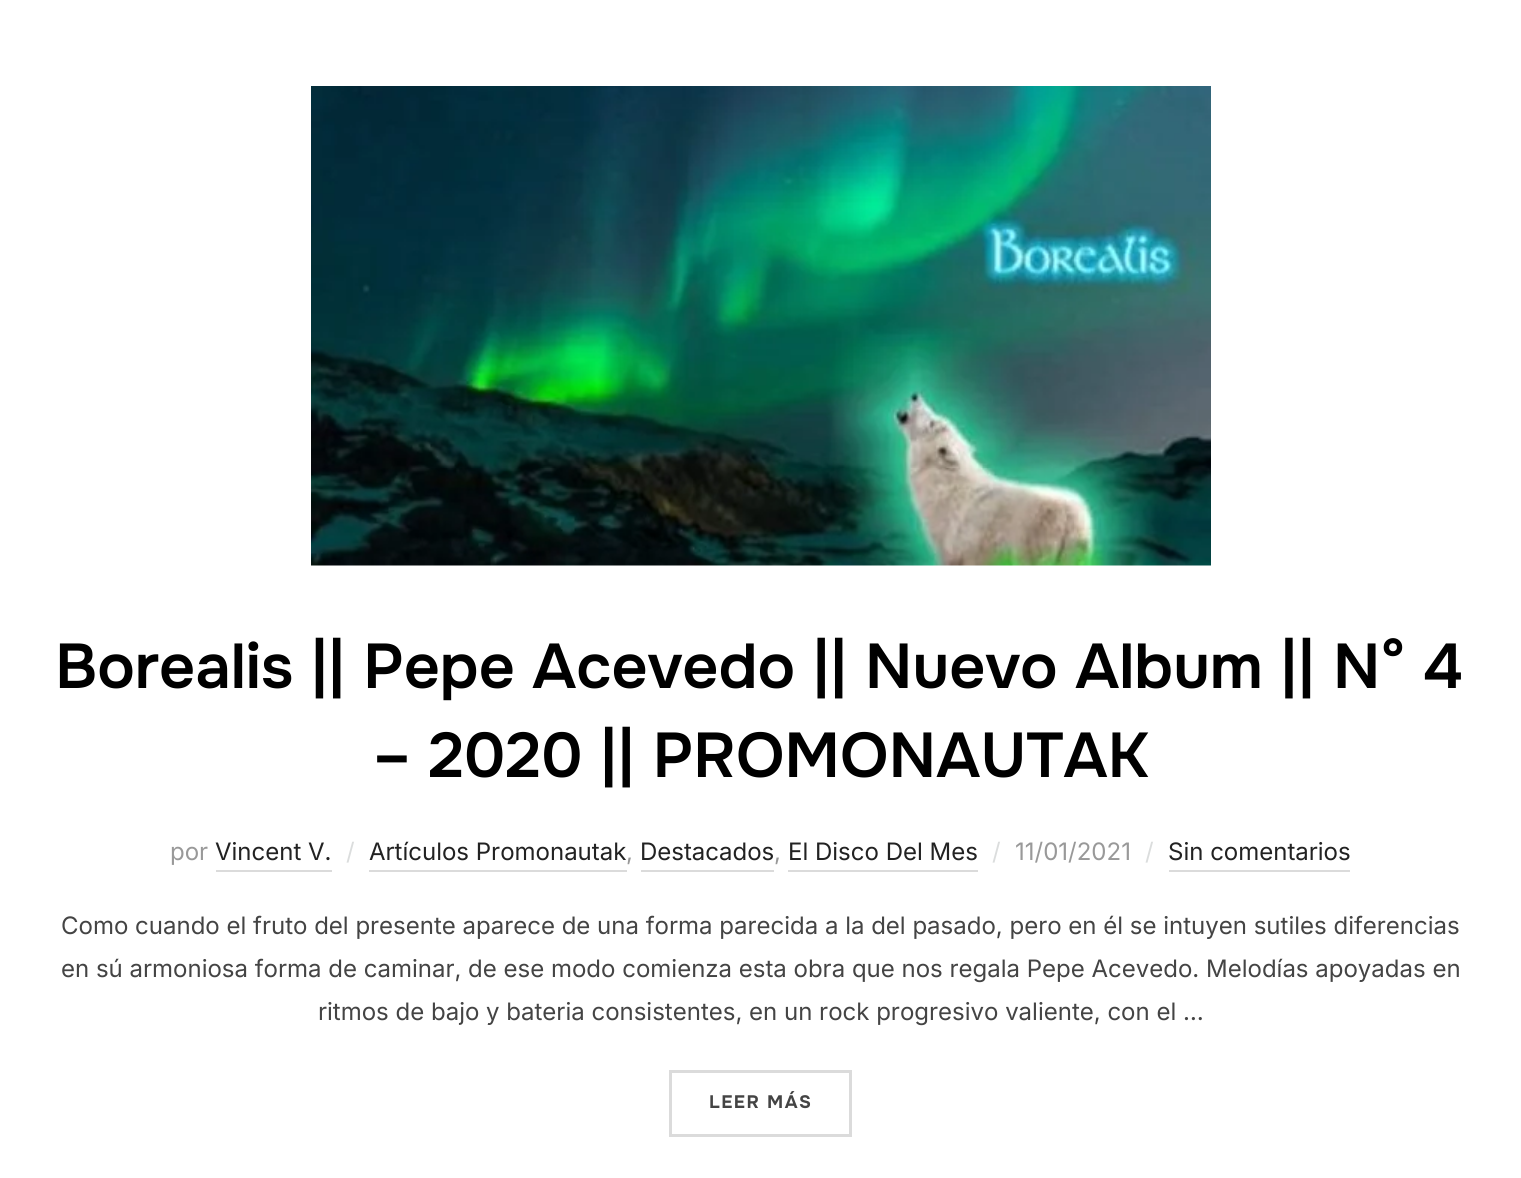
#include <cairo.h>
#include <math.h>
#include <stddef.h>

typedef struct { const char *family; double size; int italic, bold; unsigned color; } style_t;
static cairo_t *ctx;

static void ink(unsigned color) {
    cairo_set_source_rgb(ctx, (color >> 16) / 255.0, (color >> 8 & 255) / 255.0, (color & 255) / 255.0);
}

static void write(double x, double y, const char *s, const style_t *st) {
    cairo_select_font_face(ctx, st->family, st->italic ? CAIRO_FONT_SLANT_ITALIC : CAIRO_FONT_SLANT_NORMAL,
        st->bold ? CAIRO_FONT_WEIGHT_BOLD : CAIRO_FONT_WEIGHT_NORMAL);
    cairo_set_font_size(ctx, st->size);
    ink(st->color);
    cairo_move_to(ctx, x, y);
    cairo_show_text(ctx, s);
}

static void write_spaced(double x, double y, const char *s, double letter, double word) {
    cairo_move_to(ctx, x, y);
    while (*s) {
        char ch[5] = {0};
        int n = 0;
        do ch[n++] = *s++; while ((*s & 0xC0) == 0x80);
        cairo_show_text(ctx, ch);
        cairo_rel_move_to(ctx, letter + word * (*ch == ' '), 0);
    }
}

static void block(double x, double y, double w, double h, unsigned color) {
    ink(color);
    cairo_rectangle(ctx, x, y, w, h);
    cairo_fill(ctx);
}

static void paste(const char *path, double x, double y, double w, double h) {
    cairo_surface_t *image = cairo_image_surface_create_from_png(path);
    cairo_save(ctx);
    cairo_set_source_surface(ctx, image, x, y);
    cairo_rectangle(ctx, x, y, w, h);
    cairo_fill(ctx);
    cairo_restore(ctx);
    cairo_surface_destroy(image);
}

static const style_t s1 = {"Onest SemiBold", 63, 0, 0, 0x000000};
static const style_t s2 = {"Inter", 24, 0, 0, 0x999999};
static const style_t s3 = {"Inter", 24, 0, 0, 0x222222};
static const style_t s4 = {"Inter", 24, 0, 0, 0xdbdddd};
static const style_t s5 = {"Inter", 24, 0, 0, 0x444444};

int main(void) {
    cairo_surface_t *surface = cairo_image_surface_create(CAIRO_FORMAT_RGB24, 1521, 1178);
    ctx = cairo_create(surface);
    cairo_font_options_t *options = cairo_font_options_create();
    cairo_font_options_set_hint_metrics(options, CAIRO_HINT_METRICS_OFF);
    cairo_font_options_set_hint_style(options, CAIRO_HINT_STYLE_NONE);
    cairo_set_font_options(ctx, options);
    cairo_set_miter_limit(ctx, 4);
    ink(0xffffff);
    cairo_paint(ctx);
    paste("pic1.png", 311, 86, 900, 480);
    write(55, 688, "Borealis || Pepe Acevedo || Nuevo Album || N° 4", &s1);
    write(373, 777, "– 2020 || PROMONAUTAK", &s1);
    write(170, 860, "por", &s2);
    block(216, 870, 116, 2, 0xdbdbdb);
    write(215, 860, "Vincent V.", &s3);
    write(346, 860, "/", &s4);
    write(369, 860, "Artículos Promonautak", &s3);
    write(626, 860, ",", &s2);
    block(369, 870, 258, 2, 0xdbdbdb);
    write(640, 860, "Destacados", &s3);
    write(774, 860, ",", &s2);
    block(641, 870, 133, 2, 0xdbdbdb);
    block(788, 870, 190, 2, 0xdbdbdb);
    write(788, 860, "El Disco Del Mes", &s3);
    write(992, 860, "/", &s4);
    write(1015, 860, "11/01/2021", &s2);
    write(1145, 860, "/", &s4);
    write(1168, 860, "Sin comentarios", &s3);
    block(1169, 870, 181, 2, 0xdbdbdb);
    write(61, 934, "Como cuando el fruto del presente aparece de una forma parecida a la del pasado, pero en él se intuyen sutiles diferencias", &s5);
    write(61, 977, "en sú armoniosa forma de caminar, de ese modo comienza esta obra que nos regala Pepe Acevedo. Melodías apoyadas en", &s5);
    write(318, 1020, "ritmos de bajo y bateria consistentes, en un rock progresivo valiente, con el …", &s5);
    cairo_rectangle(ctx, 670.5, 1071.5, 180, 64);
    ink(0xdbdbdb);
    cairo_set_line_width(ctx, 3);
    cairo_stroke(ctx);
    cairo_select_font_face(ctx, "Onest", CAIRO_FONT_SLANT_NORMAL, CAIRO_FONT_WEIGHT_BOLD);
    cairo_set_font_size(ctx, 18);
    ink(0x444444);
    write_spaced(709, 1108, "LEER MÁS", 1.5, 0);
    cairo_surface_write_to_png(surface, "screenshot.png");
    cairo_font_options_destroy(options);
    cairo_destroy(ctx);
    cairo_surface_destroy(surface);
    return 0;
}
